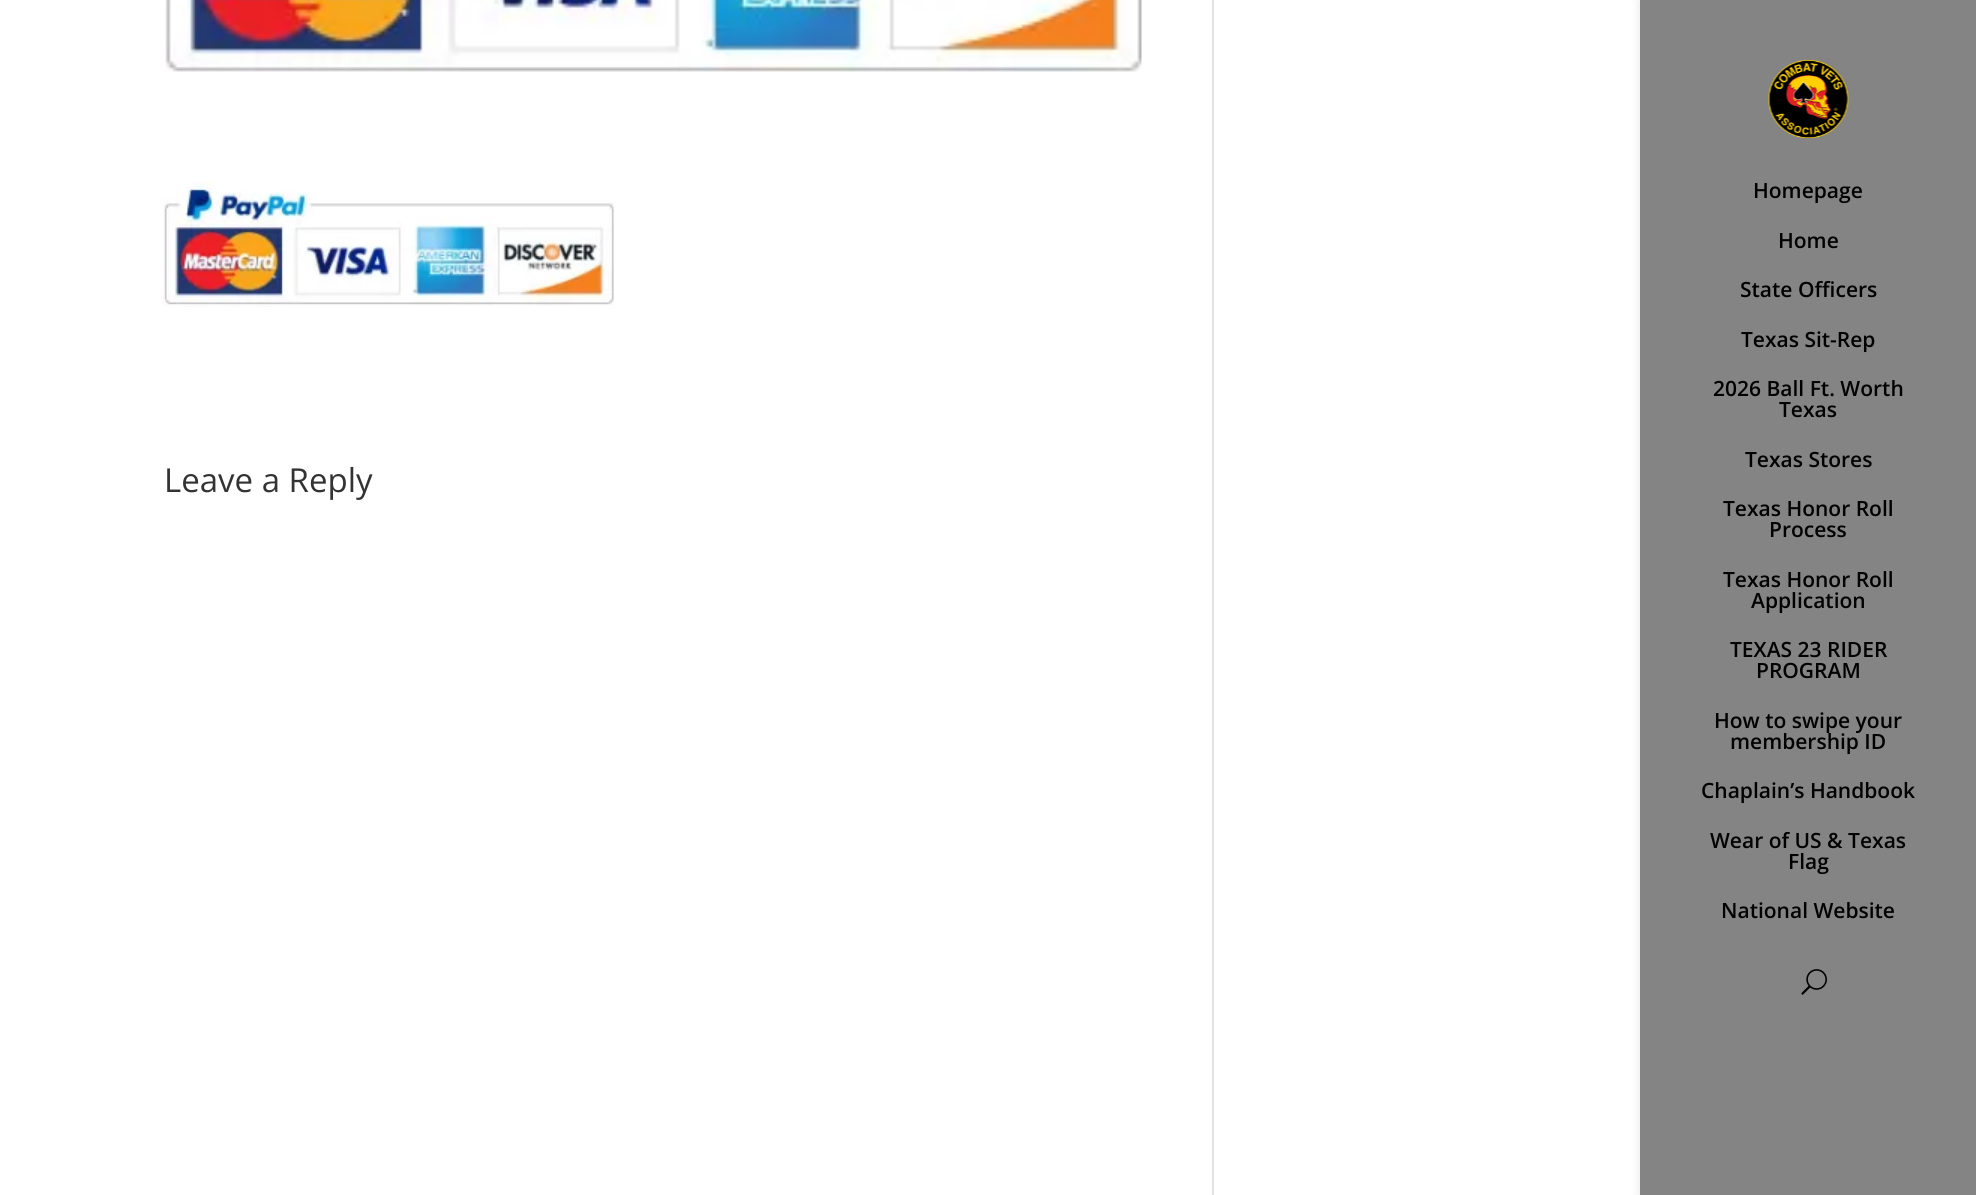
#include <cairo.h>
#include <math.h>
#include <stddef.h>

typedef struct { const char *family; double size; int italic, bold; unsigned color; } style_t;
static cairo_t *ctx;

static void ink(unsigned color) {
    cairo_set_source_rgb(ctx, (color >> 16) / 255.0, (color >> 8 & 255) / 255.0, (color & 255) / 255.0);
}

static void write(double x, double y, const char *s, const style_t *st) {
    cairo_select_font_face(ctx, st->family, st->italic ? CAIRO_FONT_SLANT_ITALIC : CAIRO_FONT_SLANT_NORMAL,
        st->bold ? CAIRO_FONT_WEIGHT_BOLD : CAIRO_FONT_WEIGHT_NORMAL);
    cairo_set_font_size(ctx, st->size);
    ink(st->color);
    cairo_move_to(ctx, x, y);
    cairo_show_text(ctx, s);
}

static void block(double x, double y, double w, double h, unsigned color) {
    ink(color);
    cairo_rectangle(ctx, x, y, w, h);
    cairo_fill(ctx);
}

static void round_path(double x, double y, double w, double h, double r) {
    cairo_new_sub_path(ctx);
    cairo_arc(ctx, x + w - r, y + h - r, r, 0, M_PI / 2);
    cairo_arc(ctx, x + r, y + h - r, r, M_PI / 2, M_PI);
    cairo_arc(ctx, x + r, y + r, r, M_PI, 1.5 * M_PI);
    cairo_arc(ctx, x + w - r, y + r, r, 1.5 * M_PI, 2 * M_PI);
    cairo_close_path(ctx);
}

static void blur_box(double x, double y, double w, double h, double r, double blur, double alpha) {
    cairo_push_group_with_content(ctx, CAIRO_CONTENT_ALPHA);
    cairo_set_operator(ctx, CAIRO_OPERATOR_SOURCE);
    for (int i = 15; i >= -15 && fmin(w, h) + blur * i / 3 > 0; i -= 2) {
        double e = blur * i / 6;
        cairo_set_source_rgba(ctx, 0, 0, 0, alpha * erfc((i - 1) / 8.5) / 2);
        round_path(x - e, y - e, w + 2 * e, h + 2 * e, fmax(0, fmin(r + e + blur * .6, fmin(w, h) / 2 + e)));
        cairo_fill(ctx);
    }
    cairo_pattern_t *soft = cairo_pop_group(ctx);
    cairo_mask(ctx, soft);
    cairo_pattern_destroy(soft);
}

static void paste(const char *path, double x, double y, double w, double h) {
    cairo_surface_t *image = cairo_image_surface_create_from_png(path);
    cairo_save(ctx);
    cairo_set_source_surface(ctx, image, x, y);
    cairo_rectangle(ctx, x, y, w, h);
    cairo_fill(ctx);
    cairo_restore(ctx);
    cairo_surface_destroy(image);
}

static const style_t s1 = {"Open Sans", 33, 0, 0, 0x333333};
static const style_t s2 = {"Open Sans SemiBold", 21, 0, 0, 0x010101};

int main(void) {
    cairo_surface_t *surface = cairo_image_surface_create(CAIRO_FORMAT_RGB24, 1976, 1195);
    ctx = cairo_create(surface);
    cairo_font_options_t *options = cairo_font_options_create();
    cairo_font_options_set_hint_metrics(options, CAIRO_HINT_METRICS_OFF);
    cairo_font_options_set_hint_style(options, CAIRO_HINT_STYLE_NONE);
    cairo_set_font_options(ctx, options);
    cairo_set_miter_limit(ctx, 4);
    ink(0xffffff);
    cairo_paint(ctx);
    paste("pic1.png", 165, 0, 977, 72);
    paste("pic2.png", 163, 181, 451, 126);
    write(164, 492, "Leave a Reply", &s1);
    block(1212, 0, 2, 1195, 0xe2e2e2);
    ink(0x000000);
    blur_box(1640, 0, 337, 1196, 0, 5, 0.1);
    block(1640, 0, 336, 1195, 0x848484);
    paste("pic3.png", 1768, 60, 81, 78);
    write(1753, 198, "Homepage", &s2);
    write(1778, 248, "Home", &s2);
    write(1740, 297, "State Officers", &s2);
    write(1741, 347, "Texas Sit-Rep", &s2);
    write(1713, 396, "2026 Ball Ft. Worth", &s2);
    write(1779, 417, "Texas", &s2);
    write(1745, 467, "Texas Stores", &s2);
    write(1723, 516, "Texas Honor Roll", &s2);
    write(1769, 537, "Process", &s2);
    write(1723, 587, "Texas Honor Roll", &s2);
    write(1751, 608, "Application", &s2);
    write(1730, 657, "TEXAS 23 RIDER", &s2);
    write(1756, 678, "PROGRAM", &s2);
    write(1714, 728, "How to swipe your", &s2);
    write(1730, 749, "membership ID", &s2);
    write(1701, 798, "Chaplain’s Handbook", &s2);
    write(1710, 848, "Wear of US & Texas", &s2);
    write(1788, 869, "Flag", &s2);
    write(1721, 918, "National Website", &s2);
    paste("pic4.png", 1801, 969, 26, 26);
    cairo_surface_write_to_png(surface, "screenshot.png");
    cairo_font_options_destroy(options);
    cairo_destroy(ctx);
    cairo_surface_destroy(surface);
    return 0;
}
